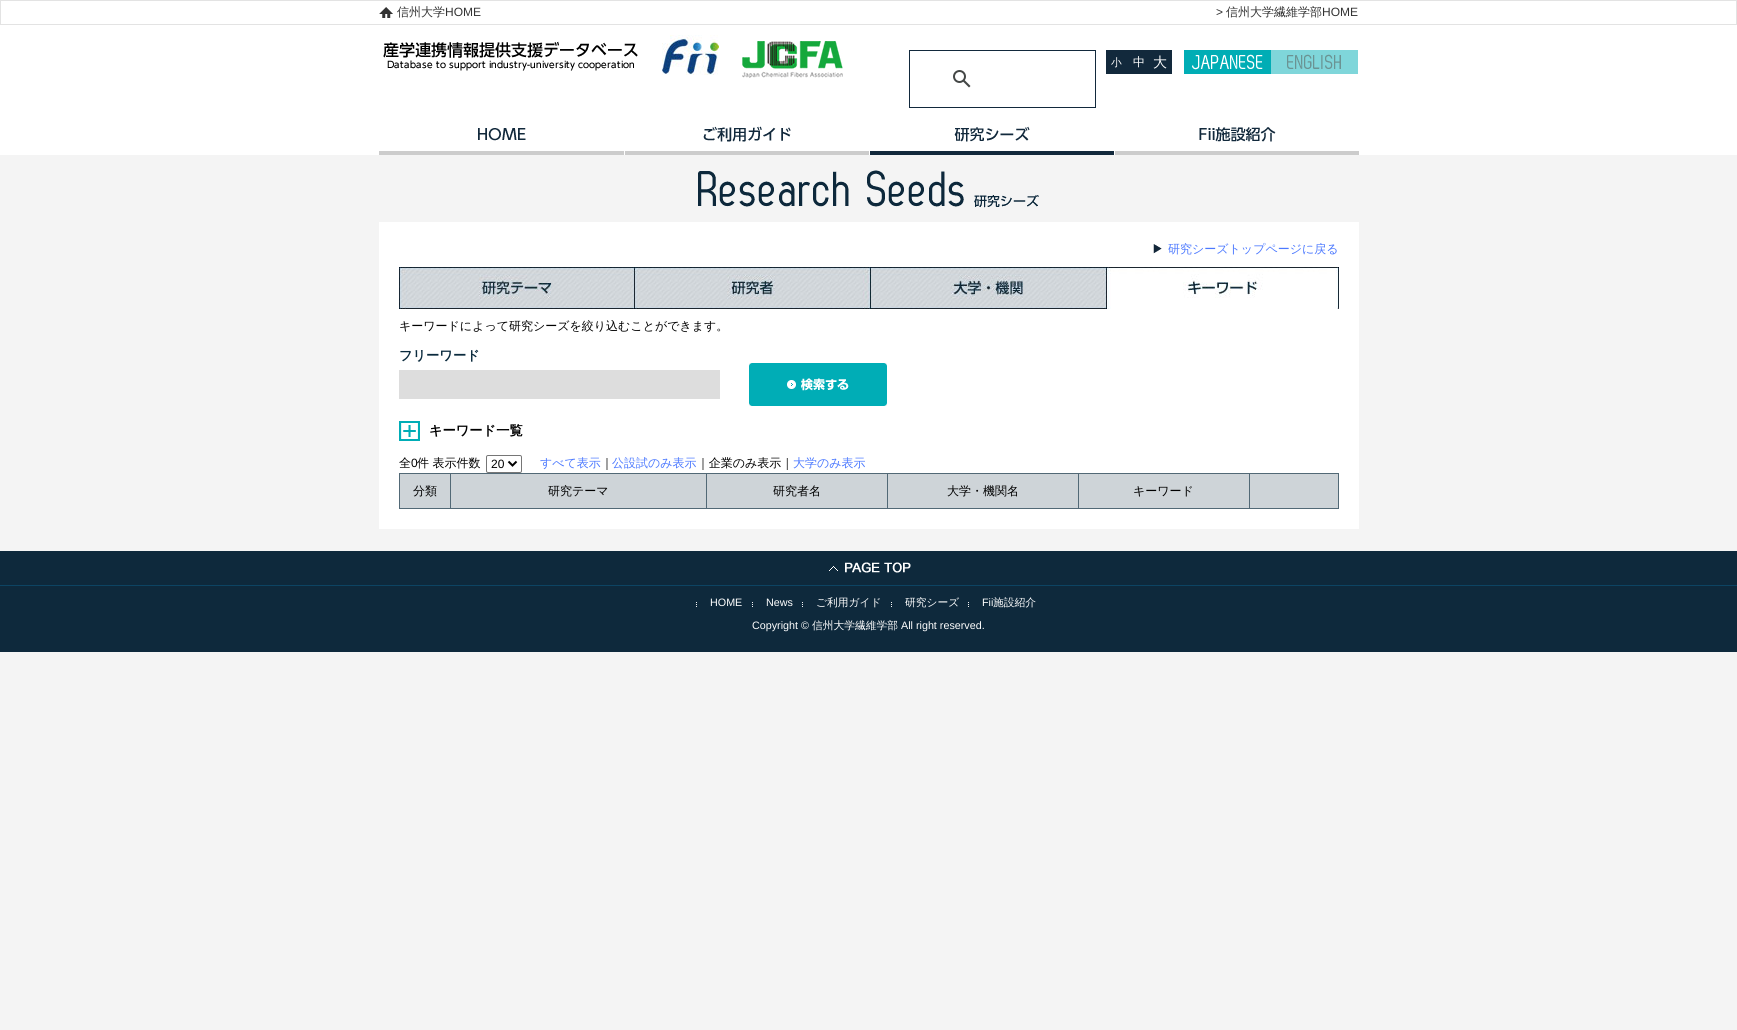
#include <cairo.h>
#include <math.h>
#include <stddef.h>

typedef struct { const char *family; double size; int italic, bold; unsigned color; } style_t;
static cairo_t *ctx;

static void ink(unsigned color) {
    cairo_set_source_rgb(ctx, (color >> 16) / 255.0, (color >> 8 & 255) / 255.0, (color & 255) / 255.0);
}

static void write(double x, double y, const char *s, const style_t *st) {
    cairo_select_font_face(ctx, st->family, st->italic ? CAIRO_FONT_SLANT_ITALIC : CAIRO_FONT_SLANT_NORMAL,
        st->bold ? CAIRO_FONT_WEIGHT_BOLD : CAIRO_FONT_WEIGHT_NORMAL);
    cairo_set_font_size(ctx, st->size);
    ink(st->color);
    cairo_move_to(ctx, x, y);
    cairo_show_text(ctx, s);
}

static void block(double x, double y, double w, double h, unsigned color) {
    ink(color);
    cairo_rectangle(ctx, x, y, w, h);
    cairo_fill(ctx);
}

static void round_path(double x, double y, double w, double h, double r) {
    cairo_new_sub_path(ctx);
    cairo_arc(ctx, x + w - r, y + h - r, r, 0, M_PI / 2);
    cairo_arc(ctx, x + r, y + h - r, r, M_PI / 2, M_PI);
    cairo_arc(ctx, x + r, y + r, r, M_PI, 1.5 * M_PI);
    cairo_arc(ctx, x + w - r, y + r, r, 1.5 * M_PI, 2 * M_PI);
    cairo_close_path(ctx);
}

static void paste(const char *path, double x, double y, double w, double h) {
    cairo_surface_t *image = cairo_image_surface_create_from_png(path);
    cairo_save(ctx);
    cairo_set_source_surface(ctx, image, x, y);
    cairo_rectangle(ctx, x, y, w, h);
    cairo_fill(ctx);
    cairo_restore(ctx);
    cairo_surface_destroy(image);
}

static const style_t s1 = {"WenQuanYi Zen Hei Medium", 12, 0, 0, 0x333333};
static const style_t s2 = {"Liberation Sans", 12, 0, 0, 0x333333};
static const style_t s3 = {"WenQuanYi Zen Hei Medium", 10.75, 0, 0, 0xffffff};
static const style_t s4 = {"WenQuanYi Zen Hei Medium", 12, 0, 0, 0xffffff};
static const style_t s5 = {"WenQuanYi Zen Hei Medium", 14, 0, 0, 0xffffff};
static const style_t s6 = {"WenQuanYi Zen Hei Medium", 12, 0, 0, 0x4c79ff};
static const style_t s7 = {"WenQuanYi Zen Hei Medium", 12, 0, 0, 0x000000};
static const style_t s8 = {"WenQuanYi Zen Hei", 13.25, 0, 1, 0x0a2a3d};
static const style_t s9 = {"WenQuanYi Zen Hei", 13.25, 0, 1, 0x000000};
static const style_t s10 = {"Liberation Sans", 12, 0, 0, 0x000000};
static const style_t s11 = {"Liberation Sans", 10.75, 0, 0, 0xffffff};

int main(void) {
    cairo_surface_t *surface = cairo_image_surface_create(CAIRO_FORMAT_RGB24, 1737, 1030);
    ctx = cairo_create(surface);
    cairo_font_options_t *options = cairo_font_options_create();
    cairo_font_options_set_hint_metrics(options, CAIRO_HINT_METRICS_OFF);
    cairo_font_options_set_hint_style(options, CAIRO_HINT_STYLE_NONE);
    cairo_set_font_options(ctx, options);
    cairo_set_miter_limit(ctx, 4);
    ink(0xf4f4f4);
    cairo_paint(ctx);
    block(0, 1, 1737, 154, 0xffffff);
    cairo_rectangle(ctx, 0.5, 0.5, 1736, 24);
    ink(0xe3e3e3);
    cairo_set_line_width(ctx, 1);
    cairo_stroke(ctx);
    paste("pic1.png", 379, 7, 14, 11);
    write(397, 16, "信州大学", &s1);
    write(445, 16, "HOME", &s2);
    write(1216, 16, ">", &s2);
    write(1226, 16, "信州大学繊維学部", &s1);
    write(1322, 16, "HOME", &s2);
    paste("pic2.png", 383, 41, 255, 30);
    paste("pic3.png", 662, 35, 57, 40);
    paste("pic4.png", 742, 41, 101, 37);
    cairo_rectangle(ctx, 909.5, 50.5, 186, 57);
    ink(0x12293c);
    cairo_stroke(ctx);
    paste("pic5.png", 953, 70, 18, 18);
    block(1106, 50, 66, 24, 0x12293c);
    write(1111, 66, "小", &s3);
    write(1133, 66, "中", &s4);
    write(1153, 67, "大", &s5);
    paste("pic6.png", 1184, 50, 87, 24);
    paste("pic7.png", 1271, 50, 87, 24);
    paste("pic8.png", 379, 128, 245, 27);
    paste("pic9.png", 625, 126, 244, 29);
    paste("pic10.png", 870, 126, 244, 29);
    paste("pic11.png", 1115, 127, 244, 28);
    paste("pic12.png", 698, 170, 341, 38);
    block(379, 222, 980, 307, 0xffffff);
    paste("pic13.png", 1153, 244, 9, 10);
    write(1168, 253, "研究シーズトップページに戻る", &s6);
    paste("pic14.png", 399, 267, 236, 42);
    paste("pic15.png", 635, 267, 236, 42);
    paste("pic16.png", 871, 267, 236, 42);
    paste("pic17.png", 1107, 267, 232, 42);
    write(399, 330, "キーワードによって研究シーズを絞り込むことができます。", &s7);
    write(399, 360, "フリーワード", &s8);
    block(399, 370, 321, 29, 0xdddddd);
    paste("pic18.png", 749, 363, 138, 43);
    paste("pic19.png", 399, 421, 21, 20);
    write(429, 435, "キーワード一覧", &s9);
    write(399, 467, "全", &s7);
    write(411, 467, "0", &s10);
    write(417, 467, "件 表示件数", &s7);
    round_path(486.5, 455.5, 35, 17, 1.5);
    ink(0x767676);
    cairo_stroke(ctx);
    cairo_new_path(ctx);
    cairo_move_to(ctx, 508.5, 461.5);
    cairo_line_to(ctx, 512.5, 465.5);
    cairo_line_to(ctx, 516.5, 461.5);
    ink(0x000000);
    cairo_set_line_width(ctx, 2);
    cairo_stroke(ctx);
    write(491, 468, "20", &s10);
    write(540, 467, "すべて表示", &s6);
    write(601, 467, "｜", &s7);
    write(612, 467, "公設試のみ表示", &s6);
    write(697, 467, "｜企業のみ表示｜", &s7);
    write(793, 467, "大学のみ表示", &s6);
    block(399, 473, 940, 1, 0x526976);
    block(1338, 473, 1, 36, 0x526976);
    block(399, 508, 940, 1, 0x526976);
    block(399, 473, 1, 36, 0x526976);
    block(400, 474, 50, 34, 0xced4d8);
    write(413, 495, "分類", &s7);
    block(451, 474, 255, 34, 0xced4d8);
    block(450, 473, 1, 36, 0x526976);
    write(548, 495, "研究テーマ", &s7);
    block(707, 474, 180, 34, 0xced4d8);
    block(706, 473, 1, 36, 0x526976);
    write(773, 495, "研究者名", &s7);
    block(888, 474, 190, 34, 0xced4d8);
    block(887, 473, 1, 36, 0x526976);
    write(947, 495, "大学・機関名", &s7);
    block(1079, 474, 170, 34, 0xced4d8);
    block(1078, 473, 1, 36, 0x526976);
    write(1133, 495, "キーワード", &s7);
    block(1250, 474, 88, 34, 0xced4d8);
    block(1249, 473, 1, 36, 0x526976);
    block(0, 551, 1737, 101, 0x0e293c);
    block(0, 585, 1737, 1, 0x0d4463);
    paste("pic20.png", 829, 562, 82, 11);
    paste("pic21.png", 696, 602, 1, 5);
    write(710, 606, "HOME", &s11);
    paste("pic21.png", 752, 602, 1, 5);
    write(766, 606, "News", &s11);
    paste("pic21.png", 802, 602, 1, 5);
    write(816, 606, "ご利用ガイド", &s3);
    paste("pic21.png", 891, 602, 1, 5);
    write(905, 606, "研究シーズ", &s3);
    paste("pic21.png", 968, 602, 1, 5);
    write(982, 606, "Fii", &s11);
    write(993, 606, "施設紹介", &s3);
    write(752, 629, "Copyright ©", &s11);
    write(812, 629, "信州大学繊維学部", &s3);
    write(901, 629, "All right reserved.", &s11);
    cairo_surface_write_to_png(surface, "screenshot.png");
    cairo_font_options_destroy(options);
    cairo_destroy(ctx);
    cairo_surface_destroy(surface);
    return 0;
}
